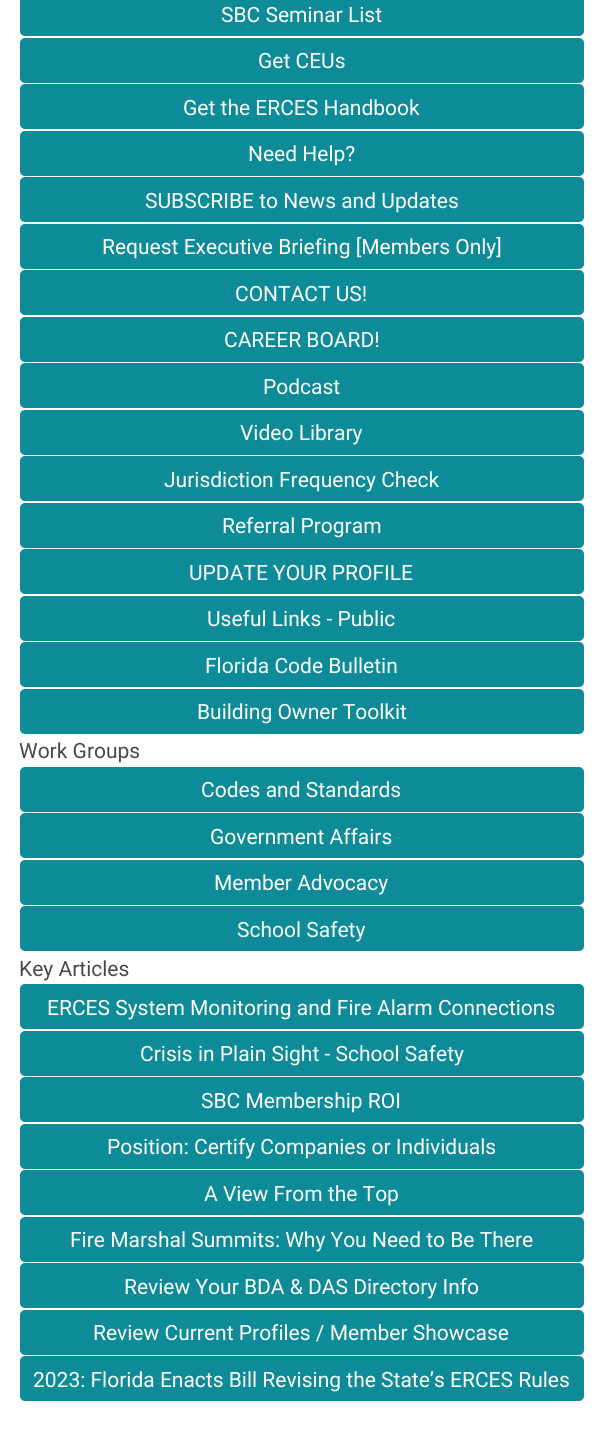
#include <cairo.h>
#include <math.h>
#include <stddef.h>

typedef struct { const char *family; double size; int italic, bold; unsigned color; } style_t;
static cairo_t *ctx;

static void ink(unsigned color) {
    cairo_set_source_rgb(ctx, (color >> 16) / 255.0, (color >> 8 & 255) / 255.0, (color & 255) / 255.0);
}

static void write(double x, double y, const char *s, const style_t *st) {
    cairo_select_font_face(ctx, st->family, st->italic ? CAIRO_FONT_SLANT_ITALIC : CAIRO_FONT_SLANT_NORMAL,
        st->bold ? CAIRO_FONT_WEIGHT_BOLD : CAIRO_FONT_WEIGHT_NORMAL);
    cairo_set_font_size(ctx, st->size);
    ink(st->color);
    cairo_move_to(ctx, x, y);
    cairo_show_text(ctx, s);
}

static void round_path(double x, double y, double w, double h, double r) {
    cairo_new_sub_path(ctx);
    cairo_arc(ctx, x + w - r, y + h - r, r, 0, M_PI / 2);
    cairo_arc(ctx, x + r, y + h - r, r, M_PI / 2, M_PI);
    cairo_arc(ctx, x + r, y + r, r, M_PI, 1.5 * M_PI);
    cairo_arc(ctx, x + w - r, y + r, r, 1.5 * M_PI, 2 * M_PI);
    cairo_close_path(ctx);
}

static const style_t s1 = {"Roboto", 21, 0, 0, 0xffffff};
static const style_t s2 = {"Roboto", 21, 0, 0, 0x4a4a4a};

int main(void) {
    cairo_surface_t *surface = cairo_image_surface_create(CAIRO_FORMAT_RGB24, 603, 1447);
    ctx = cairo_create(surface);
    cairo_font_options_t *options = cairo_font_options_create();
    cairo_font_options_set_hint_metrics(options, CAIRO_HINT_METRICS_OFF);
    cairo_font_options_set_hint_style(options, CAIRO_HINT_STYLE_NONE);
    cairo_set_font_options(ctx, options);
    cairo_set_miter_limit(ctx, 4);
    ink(0xffffff);
    cairo_paint(ctx);
    ink(0x0e8b98);
    round_path(20, -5, 564, 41, 5);
    cairo_fill(ctx);
    write(221, 22, "SBC Seminar List", &s1);
    ink(0x0e8b98);
    round_path(20, 38, 564, 45, 5);
    cairo_fill(ctx);
    write(258, 68, "Get CEUs", &s1);
    ink(0x0e8b98);
    round_path(20, 84, 564, 45, 5);
    cairo_fill(ctx);
    write(183, 115, "Get the ERCES Handbook", &s1);
    ink(0x0e8b98);
    round_path(20, 131, 564, 45, 5);
    cairo_fill(ctx);
    write(248, 161, "Need Help?", &s1);
    ink(0x0e8b98);
    round_path(20, 177, 564, 45, 5);
    cairo_fill(ctx);
    write(145, 208, "SUBSCRIBE to News and Updates", &s1);
    ink(0x0e8b98);
    round_path(20, 224, 564, 45, 5);
    cairo_fill(ctx);
    write(102, 254, "Request Executive Briefing [Members Only]", &s1);
    ink(0x0e8b98);
    round_path(20, 270, 564, 45, 5);
    cairo_fill(ctx);
    write(235, 301, "CONTACT US!", &s1);
    ink(0x0e8b98);
    round_path(20, 317, 564, 45, 5);
    cairo_fill(ctx);
    write(224, 347, "CAREER BOARD!", &s1);
    ink(0x0e8b98);
    round_path(20, 363, 564, 45, 5);
    cairo_fill(ctx);
    write(263, 394, "Podcast", &s1);
    ink(0x0e8b98);
    round_path(20, 410, 564, 45, 5);
    cairo_fill(ctx);
    write(240, 440, "Video Library", &s1);
    ink(0x0e8b98);
    round_path(20, 456, 564, 45, 5);
    cairo_fill(ctx);
    write(164, 487, "Jurisdiction Frequency Check", &s1);
    ink(0x0e8b98);
    round_path(20, 503, 564, 45, 5);
    cairo_fill(ctx);
    write(222, 533, "Referral Program", &s1);
    ink(0x0e8b98);
    round_path(20, 549, 564, 45, 5);
    cairo_fill(ctx);
    write(189, 580, "UPDATE YOUR PROFILE", &s1);
    ink(0x0e8b98);
    round_path(20, 596, 564, 45, 5);
    cairo_fill(ctx);
    write(207, 626, "Useful Links - Public", &s1);
    ink(0x0e8b98);
    round_path(20, 642, 564, 45, 5);
    cairo_fill(ctx);
    write(205, 673, "Florida Code Bulletin", &s1);
    ink(0x0e8b98);
    round_path(20, 689, 564, 45, 5);
    cairo_fill(ctx);
    write(197, 719, "Building Owner Toolkit", &s1);
    write(19, 758, "Work Groups", &s2);
    ink(0x0e8b98);
    round_path(20, 767, 564, 45, 5);
    cairo_fill(ctx);
    write(201, 797, "Codes and Standards", &s1);
    ink(0x0e8b98);
    round_path(20, 813, 564, 45, 5);
    cairo_fill(ctx);
    write(210, 844, "Government Affairs", &s1);
    ink(0x0e8b98);
    round_path(20, 860, 564, 45, 5);
    cairo_fill(ctx);
    write(214, 890, "Member Advocacy", &s1);
    ink(0x0e8b98);
    round_path(20, 906, 564, 45, 5);
    cairo_fill(ctx);
    write(237, 937, "School Safety", &s1);
    write(19, 976, "Key Articles", &s2);
    ink(0x0e8b98);
    round_path(20, 984, 564, 45, 5);
    cairo_fill(ctx);
    write(47, 1015, "ERCES System Monitoring and Fire Alarm Connections", &s1);
    ink(0x0e8b98);
    round_path(20, 1031, 564, 45, 5);
    cairo_fill(ctx);
    write(140, 1061, "Crisis in Plain Sight - School Safety", &s1);
    ink(0x0e8b98);
    round_path(20, 1077, 564, 45, 5);
    cairo_fill(ctx);
    write(201, 1108, "SBC Membership ROI", &s1);
    ink(0x0e8b98);
    round_path(20, 1124, 564, 45, 5);
    cairo_fill(ctx);
    write(107, 1154, "Position: Certify Companies or Individuals", &s1);
    ink(0x0e8b98);
    round_path(20, 1170, 564, 45, 5);
    cairo_fill(ctx);
    write(204, 1201, "A View From the Top", &s1);
    ink(0x0e8b98);
    round_path(20, 1217, 564, 45, 5);
    cairo_fill(ctx);
    write(70, 1247, "Fire Marshal Summits: Why You Need to Be There", &s1);
    ink(0x0e8b98);
    round_path(20, 1263, 564, 45, 5);
    cairo_fill(ctx);
    write(124, 1294, "Review Your BDA & DAS Directory Info", &s1);
    ink(0x0e8b98);
    round_path(20, 1310, 564, 45, 5);
    cairo_fill(ctx);
    write(93, 1340, "Review Current Profiles / Member Showcase", &s1);
    ink(0x0e8b98);
    round_path(20, 1356, 564, 45, 5);
    cairo_fill(ctx);
    write(33, 1387, "2023: Florida Enacts Bill Revising the State’s ERCES Rules", &s1);
    cairo_surface_write_to_png(surface, "screenshot.png");
    cairo_font_options_destroy(options);
    cairo_destroy(ctx);
    cairo_surface_destroy(surface);
    return 0;
}
